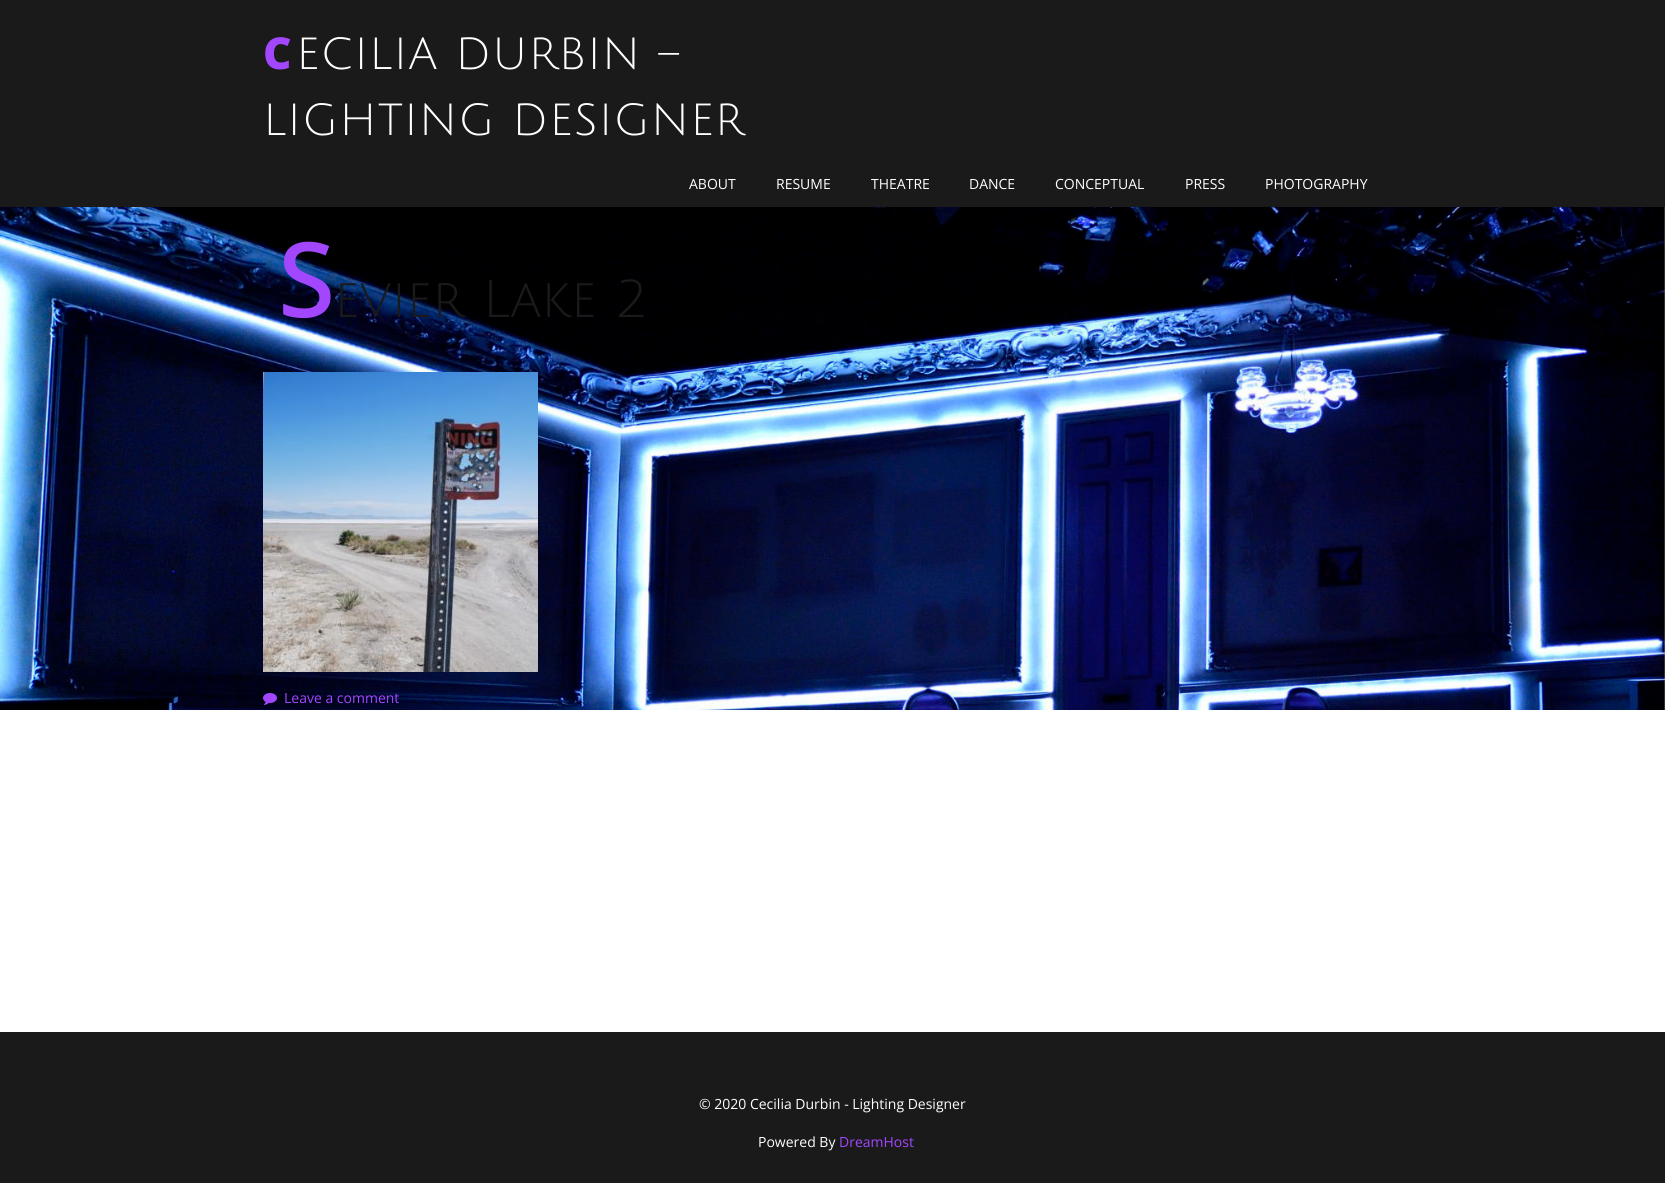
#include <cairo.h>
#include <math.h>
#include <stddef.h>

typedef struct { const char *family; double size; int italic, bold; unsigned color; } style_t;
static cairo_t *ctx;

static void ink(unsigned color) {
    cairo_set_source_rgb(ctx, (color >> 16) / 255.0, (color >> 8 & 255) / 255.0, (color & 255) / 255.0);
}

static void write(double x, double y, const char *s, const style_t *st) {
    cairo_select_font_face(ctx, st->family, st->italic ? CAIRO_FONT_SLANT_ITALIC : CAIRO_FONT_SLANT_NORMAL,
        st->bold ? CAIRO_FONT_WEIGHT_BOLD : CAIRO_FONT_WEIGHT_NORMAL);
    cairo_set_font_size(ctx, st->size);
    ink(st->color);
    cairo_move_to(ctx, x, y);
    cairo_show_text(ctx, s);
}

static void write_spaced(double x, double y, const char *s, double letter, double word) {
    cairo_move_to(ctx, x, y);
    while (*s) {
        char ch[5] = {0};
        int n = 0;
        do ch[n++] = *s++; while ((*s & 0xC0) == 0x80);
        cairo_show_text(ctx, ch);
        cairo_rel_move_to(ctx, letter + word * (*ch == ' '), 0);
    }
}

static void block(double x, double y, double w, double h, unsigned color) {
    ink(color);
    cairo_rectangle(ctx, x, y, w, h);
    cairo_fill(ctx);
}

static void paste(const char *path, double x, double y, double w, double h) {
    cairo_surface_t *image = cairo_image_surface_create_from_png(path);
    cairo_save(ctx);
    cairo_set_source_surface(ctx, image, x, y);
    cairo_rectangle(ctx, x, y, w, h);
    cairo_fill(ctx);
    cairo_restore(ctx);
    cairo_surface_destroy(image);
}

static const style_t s1 = {"Open Sans", 14, 0, 0, 0xffffff};
static const style_t s2 = {"Noto Sans Medium", 104, 0, 0, 0xa347ff};
static const style_t s3 = {"Julius Sans One", 52, 0, 0, 0x1a1a1a};
static const style_t s4 = {"Open Sans", 14, 0, 0, 0xa347ff};

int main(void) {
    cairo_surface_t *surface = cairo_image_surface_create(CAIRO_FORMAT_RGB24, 1665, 1183);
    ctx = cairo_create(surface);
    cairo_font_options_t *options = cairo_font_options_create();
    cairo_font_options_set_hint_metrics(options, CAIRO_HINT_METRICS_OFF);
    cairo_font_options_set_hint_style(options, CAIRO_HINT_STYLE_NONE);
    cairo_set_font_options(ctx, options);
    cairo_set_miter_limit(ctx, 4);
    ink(0xffffff);
    cairo_paint(ctx);
    paste("pic1.png", 0, 207, 1665, 503);
    block(0, 0, 1665, 207, 0x1a1a1a);
    cairo_select_font_face(ctx, "Noto Sans Black", CAIRO_FONT_SLANT_NORMAL, CAIRO_FONT_WEIGHT_NORMAL);
    cairo_set_font_size(ctx, 44);
    ink(0xa347ff);
    write_spaced(263, 69, "C", 1, 0);
    cairo_select_font_face(ctx, "Julius Sans One", CAIRO_FONT_SLANT_NORMAL, CAIRO_FONT_WEIGHT_NORMAL);
    ink(0xffffff);
    write_spaced(296, 69, "ECILIA DURBIN –", 1, 0);
    write_spaced(263, 135, "LIGHTING DESIGNER", 1, 0);
    write(689, 189, "ABOUT", &s1);
    write(776, 189, "RESUME", &s1);
    write(871, 189, "THEATRE", &s1);
    write(969, 189, "DANCE", &s1);
    write(1055, 189, "CONCEPTUAL", &s1);
    write(1185, 189, "PRESS", &s1);
    write(1265, 189, "PHOTOGRAPHY", &s1);
    write(278, 317, "S", &s2);
    write(334, 317, "evier Lake 2", &s3);
    paste("pic2.png", 263, 372, 275, 300);
    paste("pic3.png", 263, 693, 14, 12);
    write(284, 703, "Leave a comment", &s4);
    block(0, 1032, 1665, 151, 0x1a1a1a);
    write(699, 1109, "© 2020 Cecilia Durbin - Lighting Designer", &s1);
    write(758, 1147, "Powered By", &s1);
    write(839, 1147, "DreamHost", &s4);
    cairo_surface_write_to_png(surface, "screenshot.png");
    cairo_font_options_destroy(options);
    cairo_destroy(ctx);
    cairo_surface_destroy(surface);
    return 0;
}
